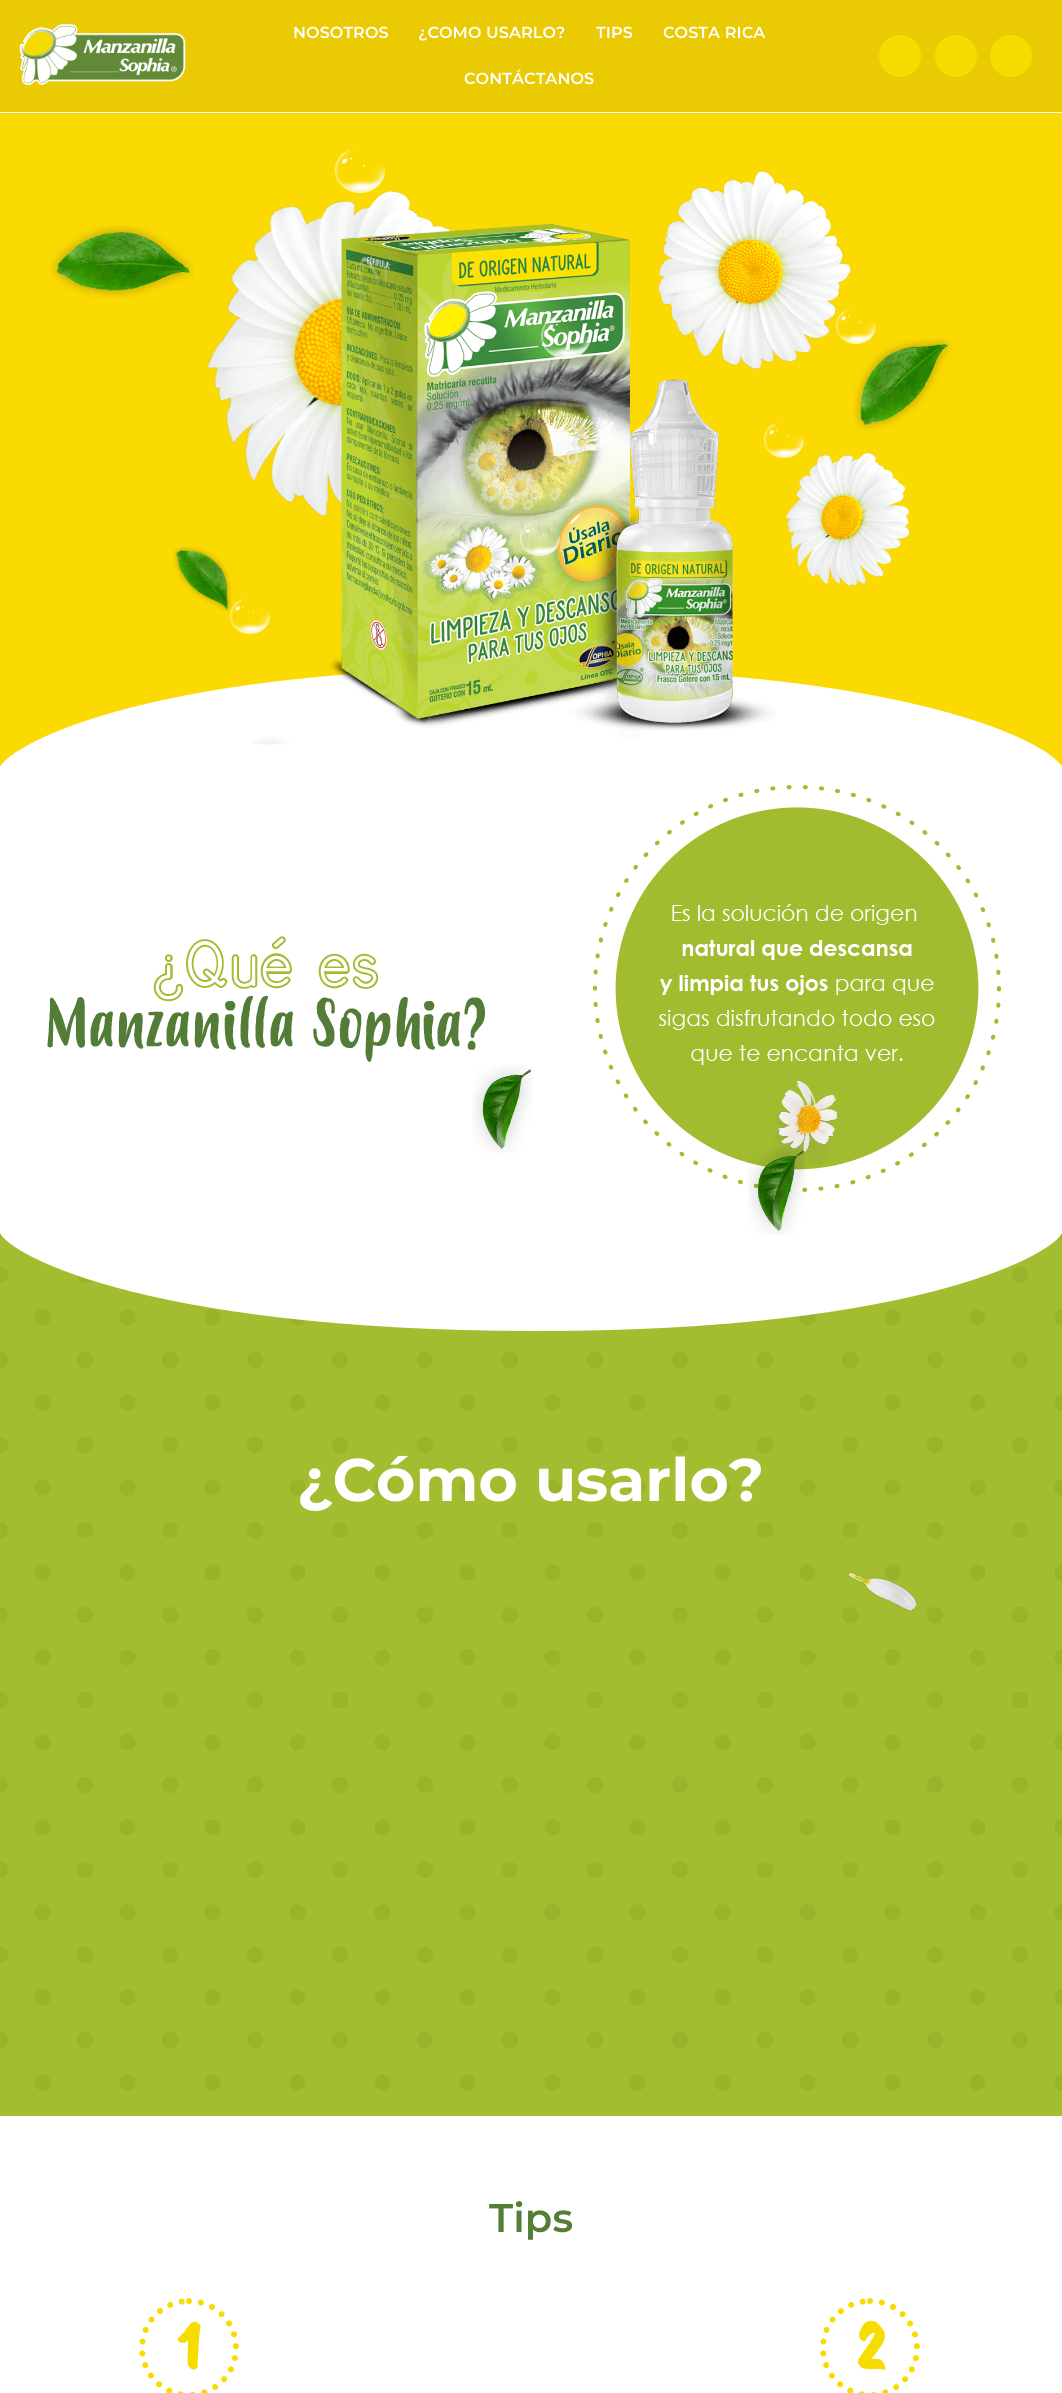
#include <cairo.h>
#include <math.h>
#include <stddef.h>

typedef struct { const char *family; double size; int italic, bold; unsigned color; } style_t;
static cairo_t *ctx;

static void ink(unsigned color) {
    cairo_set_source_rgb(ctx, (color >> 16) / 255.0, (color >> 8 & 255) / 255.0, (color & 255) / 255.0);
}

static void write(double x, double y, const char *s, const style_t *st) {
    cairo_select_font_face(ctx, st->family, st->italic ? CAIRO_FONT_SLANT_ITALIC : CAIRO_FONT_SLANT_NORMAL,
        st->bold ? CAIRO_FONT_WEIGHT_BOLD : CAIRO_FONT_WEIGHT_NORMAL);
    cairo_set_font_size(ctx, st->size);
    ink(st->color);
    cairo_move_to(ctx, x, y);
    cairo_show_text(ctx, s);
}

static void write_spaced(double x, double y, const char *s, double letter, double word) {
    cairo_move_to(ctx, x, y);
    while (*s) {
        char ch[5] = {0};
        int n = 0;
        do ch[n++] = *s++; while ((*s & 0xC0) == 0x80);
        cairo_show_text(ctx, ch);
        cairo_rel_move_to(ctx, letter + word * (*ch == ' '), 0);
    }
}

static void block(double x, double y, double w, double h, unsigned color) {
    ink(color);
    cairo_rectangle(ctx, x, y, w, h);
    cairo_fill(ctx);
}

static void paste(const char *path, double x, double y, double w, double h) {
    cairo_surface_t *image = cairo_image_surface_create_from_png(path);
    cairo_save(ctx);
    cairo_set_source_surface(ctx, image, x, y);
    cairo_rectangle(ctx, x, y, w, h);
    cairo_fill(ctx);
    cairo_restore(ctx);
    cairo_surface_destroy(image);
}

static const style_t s1 = {"Caveat Brush", 70, 0, 1, 0xf7dc00};

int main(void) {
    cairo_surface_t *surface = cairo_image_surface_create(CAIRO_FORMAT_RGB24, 1062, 2393);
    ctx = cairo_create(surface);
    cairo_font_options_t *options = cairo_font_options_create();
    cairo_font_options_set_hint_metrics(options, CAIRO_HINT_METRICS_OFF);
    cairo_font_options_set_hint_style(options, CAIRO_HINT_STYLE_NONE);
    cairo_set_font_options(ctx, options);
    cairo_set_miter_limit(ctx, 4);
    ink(0xffffff);
    cairo_paint(ctx);
    block(0, 0, 1062, 112, 0xe9ca03);
    paste("pic1.png", 19, 23, 167, 63);
    cairo_select_font_face(ctx, "Montserrat SemiBold", CAIRO_FONT_SLANT_NORMAL, CAIRO_FONT_WEIGHT_NORMAL);
    cairo_set_font_size(ctx, 16);
    ink(0xffffff);
    write_spaced(293, 38, "NOSOTROS", 0.1, 0);
    write_spaced(418, 38, "¿COMO USARLO?", 0.1, 0);
    write_spaced(596, 38, "TIPS", 0.1, 0);
    write_spaced(663, 38, "COSTA RICA", 0.1, 0);
    write_spaced(464, 84, "CONTÁCTANOS", 0.1, 0);
    ink(0xf7dc00);
    cairo_new_path(ctx);
    cairo_arc(ctx, 900, 56, 21, 0, 2 * M_PI);
    cairo_fill(ctx);
    cairo_arc(ctx, 956, 56, 21, 0, 2 * M_PI);
    cairo_fill(ctx);
    cairo_arc(ctx, 1011, 56, 21, 0, 2 * M_PI);
    cairo_fill(ctx);
    block(0, 113, 1062, 654, 0xfbda02);
    paste("pic4.png", 207, 190, 246, 327);
    paste("pic2.png", 335, 148, 50, 45);
    paste("pic3.png", 658, 171, 193, 198);
    paste("pic5.png", 50, 225, 144, 73);
    ink(0xffffff);
    cairo_new_path(ctx);
    cairo_move_to(ctx, -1, 770);
    cairo_line_to(ctx, -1, 775);
    cairo_line_to(ctx, 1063, 775);
    cairo_line_to(ctx, 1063, 770);
    cairo_curve_to(ctx, 1062, 750, 928, 669, 531, 668);
    cairo_curve_to(ctx, 134, 667, -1, 751, -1, 770);
    cairo_close_path(ctx);
    cairo_fill(ctx);
    paste("pic6.png", 252, 223, 523, 522);
    paste("pic7.png", 541, 315, 49, 44);
    paste("pic9.png", 853, 338, 99, 93);
    paste("pic8.png", 836, 308, 40, 36);
    paste("pic12.png", 785, 453, 125, 133);
    paste("pic10.png", 764, 422, 40, 36);
    paste("pic11.png", 520, 522, 40, 34);
    paste("pic13.png", 173, 546, 59, 65);
    paste("pic14.png", 230, 598, 40, 36);
    paste("pic15.png", 47, 936, 438, 126);
    paste("pic16.png", 472, 1065, 60, 88);
    paste("pic17.png", 593, 785, 408, 407);
    block(0, 1233, 1062, 883, 0xa3bd31);
    paste("pic19.png", 0, 1233, 1062, 858);
    ink(0xffffff);
    cairo_new_path(ctx);
    cairo_move_to(ctx, 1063, 1230);
    cairo_line_to(ctx, 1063, 1225);
    cairo_line_to(ctx, -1, 1225);
    cairo_line_to(ctx, -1, 1230);
    cairo_curve_to(ctx, 0, 1250, 134, 1330, 531, 1331);
    cairo_curve_to(ctx, 928, 1332, 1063, 1249, 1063, 1230);
    cairo_close_path(ctx);
    cairo_fill(ctx);
    paste("pic18.png", 748, 1146, 58, 89);
    cairo_select_font_face(ctx, "Montserrat", CAIRO_FONT_SLANT_NORMAL, CAIRO_FONT_WEIGHT_BOLD);
    cairo_set_font_size(ctx, 60);
    write_spaced(297, 1501, "¿Cómo usarlo?", 0.1, 0);
    paste("pic20.png", 848, 1572, 69, 39);
    cairo_select_font_face(ctx, "Montserrat SemiBold", CAIRO_FONT_SLANT_NORMAL, CAIRO_FONT_WEIGHT_NORMAL);
    cairo_set_font_size(ctx, 40);
    ink(0x547d36);
    write_spaced(489, 2232, "Tips", 0.1, 0);
    cairo_new_path(ctx);
    cairo_move_to(ctx, 189, 2301);
    cairo_curve_to(ctx, 215, 2301, 236, 2322, 236, 2348);
    cairo_curve_to(ctx, 236, 2374, 215, 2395, 189, 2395);
    cairo_curve_to(ctx, 163, 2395, 142, 2374, 142, 2348);
    cairo_curve_to(ctx, 142, 2322, 163, 2301, 189, 2301);
    cairo_close_path(ctx);
    ink(0xf7dc00);
    cairo_set_line_width(ctx, 6);
    cairo_set_line_cap(ctx, CAIRO_LINE_CAP_ROUND);
    cairo_set_dash(ctx, (double[]){0, 12}, 2, 0);
    cairo_stroke(ctx);
    write(177, 2369, "1", &s1);
    cairo_new_path(ctx);
    cairo_move_to(ctx, 870, 2301);
    cairo_curve_to(ctx, 896, 2301, 917, 2322, 917, 2348);
    cairo_curve_to(ctx, 917, 2374, 896, 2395, 870, 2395);
    cairo_curve_to(ctx, 844, 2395, 823, 2374, 823, 2348);
    cairo_curve_to(ctx, 823, 2322, 844, 2301, 870, 2301);
    cairo_close_path(ctx);
    cairo_stroke(ctx);
    write_spaced(856, 2369, "2", 0.1, 0);
    cairo_surface_write_to_png(surface, "screenshot.png");
    cairo_font_options_destroy(options);
    cairo_destroy(ctx);
    cairo_surface_destroy(surface);
    return 0;
}
